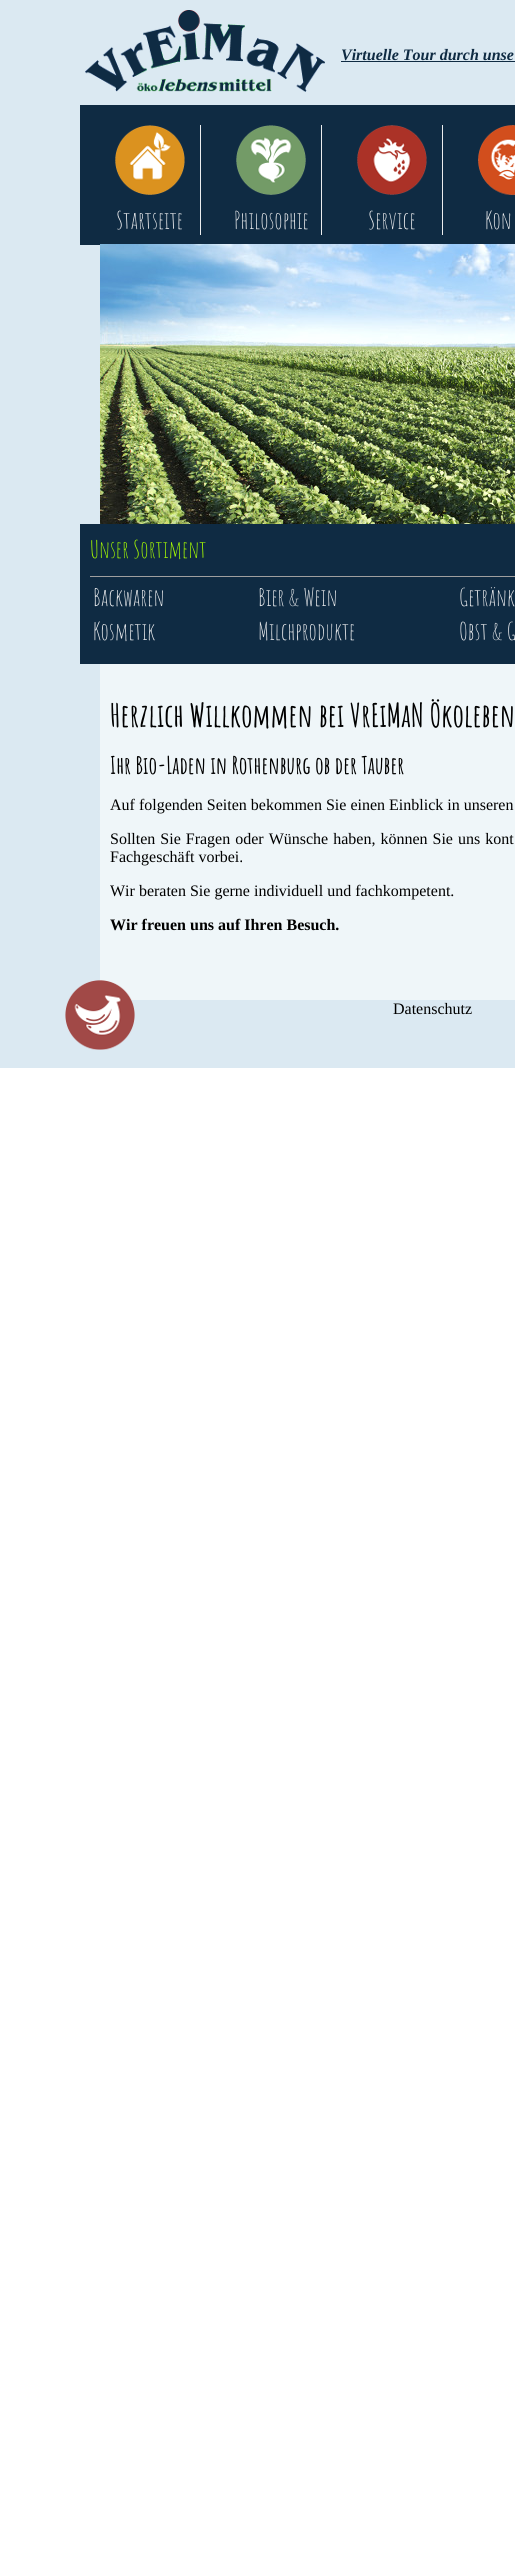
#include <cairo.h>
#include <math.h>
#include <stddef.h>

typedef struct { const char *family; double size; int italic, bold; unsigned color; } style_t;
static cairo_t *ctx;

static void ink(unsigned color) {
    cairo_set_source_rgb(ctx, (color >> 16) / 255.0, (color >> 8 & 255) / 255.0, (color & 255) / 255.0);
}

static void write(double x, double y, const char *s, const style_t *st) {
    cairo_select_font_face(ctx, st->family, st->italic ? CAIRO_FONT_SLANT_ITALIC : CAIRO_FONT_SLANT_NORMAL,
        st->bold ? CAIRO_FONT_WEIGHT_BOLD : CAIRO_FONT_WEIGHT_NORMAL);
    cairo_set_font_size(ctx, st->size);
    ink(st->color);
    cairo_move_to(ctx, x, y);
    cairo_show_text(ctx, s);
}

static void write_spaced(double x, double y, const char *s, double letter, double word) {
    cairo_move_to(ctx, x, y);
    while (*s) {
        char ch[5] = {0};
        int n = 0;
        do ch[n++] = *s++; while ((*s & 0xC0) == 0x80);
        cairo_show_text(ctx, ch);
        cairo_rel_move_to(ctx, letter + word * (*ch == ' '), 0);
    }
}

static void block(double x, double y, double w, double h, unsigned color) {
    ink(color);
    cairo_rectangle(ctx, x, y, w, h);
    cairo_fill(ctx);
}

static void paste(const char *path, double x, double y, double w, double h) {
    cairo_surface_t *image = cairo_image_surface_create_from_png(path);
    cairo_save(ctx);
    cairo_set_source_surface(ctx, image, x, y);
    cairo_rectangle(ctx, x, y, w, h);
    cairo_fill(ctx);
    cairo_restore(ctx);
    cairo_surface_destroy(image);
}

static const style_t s1 = {"Liberation Serif", 16, 1, 1, 0x0f2b43};
static const style_t s2 = {"Amatic SC", 24, 0, 0, 0xecedef};
static const style_t s3 = {"Amatic SC", 24, 0, 0, 0xa4f902};
static const style_t s4 = {"Amatic SC", 32, 0, 1, 0x000000};
static const style_t s5 = {"Amatic SC", 24, 0, 1, 0x000000};
static const style_t s6 = {"Liberation Serif", 16, 0, 0, 0x000000};
static const style_t s7 = {"Liberation Serif", 16, 0, 1, 0x000000};

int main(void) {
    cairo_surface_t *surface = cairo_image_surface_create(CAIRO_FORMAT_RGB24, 515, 2564);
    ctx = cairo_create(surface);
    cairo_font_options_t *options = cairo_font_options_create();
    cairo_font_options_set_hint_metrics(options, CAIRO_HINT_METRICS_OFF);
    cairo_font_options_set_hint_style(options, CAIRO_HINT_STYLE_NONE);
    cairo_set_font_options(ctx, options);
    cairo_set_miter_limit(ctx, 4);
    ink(0xffffff);
    cairo_paint(ctx);
    block(0, 0, 515, 1068, 0xdbe9f2);
    paste("pic1.png", 85, 10, 240, 82);
    write(341, 60, "Virtuelle Tour durch unse", &s1);
    block(341, 61, 174, 1, 0x0f2b43);
    block(80, 105, 435, 140, 0x0f2b43);
    block(200, 125, 1, 110, 0xecedef);
    paste("pic2.png", 115, 125, 70, 70);
    write(116, 229, "Startseite", &s2);
    block(321, 125, 1, 110, 0xecedef);
    paste("pic3.png", 236, 125, 70, 70);
    write(234, 229, "Philosophie", &s2);
    block(442, 125, 1, 110, 0xecedef);
    paste("pic4.png", 357, 125, 70, 70);
    write(368, 229, "Service", &s2);
    paste("pic5.png", 478, 125, 37, 70);
    write(485, 229, "Kon", &s2);
    paste("pic6.png", 100, 244, 415, 280);
    block(80, 524, 435, 140, 0x0f2b43);
    write(90, 558, "Unser Sortiment", &s3);
    block(90, 576, 425, 1, 0x9f9f9f);
    write(93, 606, "Backwaren", &s2);
    write(258, 606, "Bier & Wein", &s2);
    write(459, 606, "Getränk", &s2);
    write(93, 640, "Kosmetik", &s2);
    write(258, 640, "Milchprodukte", &s2);
    write(459, 640, "Obst & G", &s2);
    block(100, 664, 415, 336, 0xeff6f9);
    write(110, 727, "Herzlich Willkommen bei VrEiMaN Ökoleben", &s4);
    write(110, 774, "Ihr Bio-Laden in Rothenburg ob der Tauber", &s5);
    write(110, 810, "Auf folgenden Seiten bekommen Sie einen Einblick in unseren", &s6);
    write_spaced(110, 844, "Sollten Sie Fragen oder Wünsche haben, können Sie uns kont", 0, 1);
    write(110, 862, "Fachgeschäft vorbei.", &s6);
    write(110, 896, "Wir beraten Sie gerne individuell und fachkompetent.", &s6);
    write(110, 930, "Wir freuen uns auf Ihren Besuch.", &s7);
    paste("pic7.png", 65, 980, 70, 70);
    write(393, 1014, "Datenschutz", &s6);
    cairo_surface_write_to_png(surface, "screenshot.png");
    cairo_font_options_destroy(options);
    cairo_destroy(ctx);
    cairo_surface_destroy(surface);
    return 0;
}
